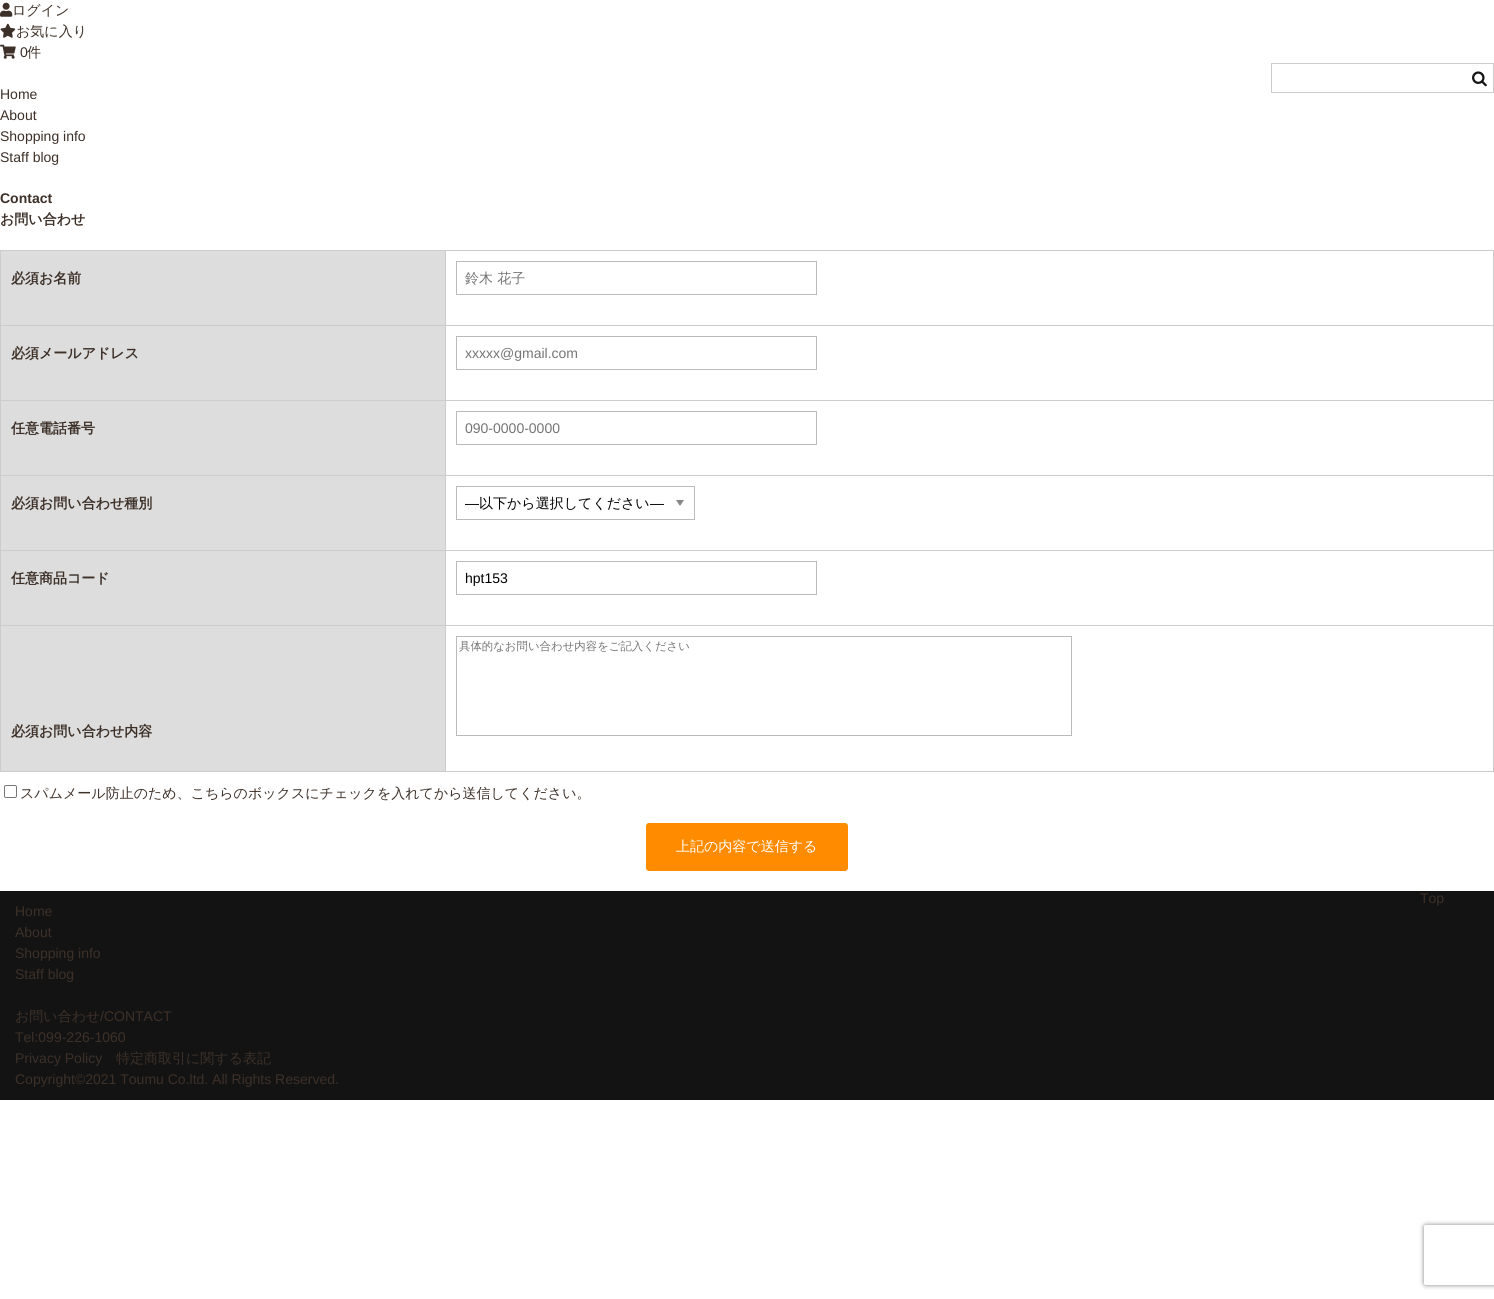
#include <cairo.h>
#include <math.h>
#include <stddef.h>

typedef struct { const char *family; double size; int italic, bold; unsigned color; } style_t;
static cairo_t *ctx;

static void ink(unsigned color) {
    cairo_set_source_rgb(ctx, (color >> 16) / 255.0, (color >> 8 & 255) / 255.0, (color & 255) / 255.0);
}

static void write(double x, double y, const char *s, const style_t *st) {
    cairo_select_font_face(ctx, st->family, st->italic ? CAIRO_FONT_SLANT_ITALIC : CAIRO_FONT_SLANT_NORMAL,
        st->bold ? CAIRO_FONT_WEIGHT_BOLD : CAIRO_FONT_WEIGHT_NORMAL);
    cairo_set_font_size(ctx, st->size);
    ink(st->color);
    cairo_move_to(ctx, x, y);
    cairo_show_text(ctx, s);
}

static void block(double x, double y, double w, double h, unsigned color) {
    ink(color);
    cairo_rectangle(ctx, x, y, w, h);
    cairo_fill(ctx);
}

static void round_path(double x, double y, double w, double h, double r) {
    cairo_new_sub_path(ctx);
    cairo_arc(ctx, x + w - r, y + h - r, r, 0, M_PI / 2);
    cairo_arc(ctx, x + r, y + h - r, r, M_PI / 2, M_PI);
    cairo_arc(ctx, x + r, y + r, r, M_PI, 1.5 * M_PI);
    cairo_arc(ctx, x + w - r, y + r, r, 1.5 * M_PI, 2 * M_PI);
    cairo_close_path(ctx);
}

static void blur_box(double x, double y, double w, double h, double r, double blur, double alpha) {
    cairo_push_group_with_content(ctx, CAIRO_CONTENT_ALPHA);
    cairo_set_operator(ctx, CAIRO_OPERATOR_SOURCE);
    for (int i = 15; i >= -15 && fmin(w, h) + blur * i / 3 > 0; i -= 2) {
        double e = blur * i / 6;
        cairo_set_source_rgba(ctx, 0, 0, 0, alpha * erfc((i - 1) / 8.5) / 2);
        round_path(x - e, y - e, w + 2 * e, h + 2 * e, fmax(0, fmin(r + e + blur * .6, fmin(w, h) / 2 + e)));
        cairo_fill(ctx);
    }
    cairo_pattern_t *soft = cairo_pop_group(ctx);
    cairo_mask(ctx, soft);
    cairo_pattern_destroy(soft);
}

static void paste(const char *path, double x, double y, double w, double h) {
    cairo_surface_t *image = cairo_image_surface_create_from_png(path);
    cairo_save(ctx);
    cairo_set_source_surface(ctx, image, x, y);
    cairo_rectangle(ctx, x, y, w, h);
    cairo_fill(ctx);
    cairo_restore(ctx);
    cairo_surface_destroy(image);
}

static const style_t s1 = {"WenQuanYi Zen Hei Medium", 14, 0, 0, 0x3c3028};
static const style_t s2 = {"Liberation Sans", 14, 0, 0, 0x3c3028};
static const style_t s3 = {"Liberation Sans", 14, 0, 1, 0x3c3028};
static const style_t s4 = {"WenQuanYi Zen Hei", 14, 0, 1, 0x3c3028};
static const style_t s5 = {"WenQuanYi Zen Hei Medium", 14, 0, 0, 0x757575};
static const style_t s6 = {"Liberation Sans", 14, 0, 0, 0x757575};
static const style_t s7 = {"Liberation Sans", 14, 0, 0, 0x000000};
static const style_t s8 = {"WenQuanYi Zen Hei Medium", 14, 0, 0, 0x000000};
static const style_t s9 = {"WenQuanYi Zen Hei Medium", 11.4, 0, 0, 0x757575};
static const style_t s10 = {"WenQuanYi Zen Hei Medium", 14, 0, 0, 0xffffff};

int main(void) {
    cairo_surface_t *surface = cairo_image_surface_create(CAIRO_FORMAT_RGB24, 1494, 1299);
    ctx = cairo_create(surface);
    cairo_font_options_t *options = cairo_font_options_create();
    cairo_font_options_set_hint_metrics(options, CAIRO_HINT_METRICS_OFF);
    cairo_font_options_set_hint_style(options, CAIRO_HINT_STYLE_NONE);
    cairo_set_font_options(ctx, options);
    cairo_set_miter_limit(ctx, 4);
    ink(0xffffff);
    cairo_paint(ctx);
    paste("pic1.png", 0, 2, 13, 15);
    write(12, 15, "ログイン", &s1);
    paste("pic2.png", 0, 23, 16, 15);
    write(16, 36, "お気に入り", &s1);
    paste("pic3.png", 0, 44, 16, 15);
    write(20, 57, "0", &s2);
    write(27, 57, "件", &s1);
    cairo_rectangle(ctx, 1271.5, 63.5, 222, 29);
    ink(0xcccccc);
    cairo_set_line_width(ctx, 1);
    cairo_stroke(ctx);
    paste("pic4.png", 1472, 71, 15, 16);
    write(0, 99, "Home", &s2);
    write(0, 120, "About", &s2);
    write(0, 141, "Shopping info", &s2);
    write(0, 162, "Staff blog", &s2);
    write(0, 203, "Contact", &s3);
    write(0, 224, "お問い合わせ", &s4);
    block(0, 250, 1494, 1, 0xcccccc);
    block(1493, 250, 1, 522, 0xcccccc);
    block(0, 771, 1494, 1, 0xcccccc);
    block(0, 250, 1, 522, 0xcccccc);
    block(1, 251, 444, 74, 0xdddddd);
    write(11, 283, "必須お名前", &s4);
    block(445, 325, 1049, 1, 0xcccccc);
    block(445, 400, 1049, 1, 0xcccccc);
    block(445, 475, 1049, 1, 0xcccccc);
    block(445, 550, 1049, 1, 0xcccccc);
    block(445, 625, 1049, 1, 0xcccccc);
    block(445, 625, 1, 147, 0xcccccc);
    block(0, 625, 446, 1, 0xcccccc);
    block(445, 550, 1, 76, 0xcccccc);
    block(0, 550, 446, 1, 0xcccccc);
    block(445, 475, 1, 76, 0xcccccc);
    block(0, 475, 446, 1, 0xcccccc);
    block(445, 400, 1, 76, 0xcccccc);
    block(0, 400, 446, 1, 0xcccccc);
    block(445, 325, 1, 76, 0xcccccc);
    block(0, 325, 446, 1, 0xcccccc);
    block(445, 250, 1, 76, 0xcccccc);
    cairo_rectangle(ctx, 456.5, 261.5, 360, 33);
    ink(0xbbbbbb);
    cairo_stroke(ctx);
    write(465, 283, "鈴木 花子", &s5);
    block(1, 326, 444, 74, 0xdddddd);
    write(11, 358, "必須メールアドレス", &s4);
    cairo_rectangle(ctx, 456.5, 336.5, 360, 33);
    ink(0xbbbbbb);
    cairo_stroke(ctx);
    write(465, 358, "xxxxx@gmail.com", &s6);
    block(1, 401, 444, 74, 0xdddddd);
    write(11, 433, "任意電話番号", &s4);
    cairo_rectangle(ctx, 456.5, 411.5, 360, 33);
    ink(0xbbbbbb);
    cairo_stroke(ctx);
    write(465, 433, "090-0000-0000", &s6);
    block(1, 476, 444, 74, 0xdddddd);
    write(11, 508, "必須お問い合わせ種別", &s4);
    paste("pic5.png", 676, 500, 8, 6);
    cairo_rectangle(ctx, 456.5, 486.5, 238, 33);
    ink(0xbbbbbb);
    cairo_stroke(ctx);
    write(465, 508, "—", &s7);
    write(479, 508, "以下から選択してください", &s8);
    write(650, 508, "—", &s7);
    block(1, 551, 444, 74, 0xdddddd);
    write(11, 583, "任意商品コード", &s4);
    cairo_rectangle(ctx, 456.5, 561.5, 360, 33);
    ink(0xbbbbbb);
    cairo_stroke(ctx);
    write(465, 583, "hpt153", &s7);
    cairo_rectangle(ctx, 456.5, 636.5, 615, 99);
    ink(0xbbbbbb);
    cairo_stroke(ctx);
    write(459, 650, "具体的なお問い合わせ内容をご記入ください", &s9);
    block(1, 626, 444, 145, 0xdddddd);
    write(11, 736, "必須お問い合わせ内容", &s4);
    round_path(4.5, 785.5, 12, 12, 1.5);
    ink(0x767676);
    cairo_stroke(ctx);
    write(20, 798, "スパムメール防止のため、こちらのボックスにチェックを入れてから送信してください。", &s1);
    ink(0xff8c00);
    round_path(646, 823, 202, 48, 3);
    cairo_fill(ctx);
    write(676, 851, "上記の内容で送信する", &s10);
    cairo_save(ctx);
    cairo_set_fill_rule(ctx, CAIRO_FILL_RULE_EVEN_ODD);
    cairo_new_path(ctx);
    cairo_move_to(ctx, 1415, 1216);
    cairo_line_to(ctx, 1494, 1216);
    cairo_line_to(ctx, 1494, 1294);
    cairo_line_to(ctx, 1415, 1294);
    cairo_close_path(ctx);
    cairo_move_to(ctx, 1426, 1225);
    cairo_line_to(ctx, 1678, 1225);
    cairo_curve_to(ctx, 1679, 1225, 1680, 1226, 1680, 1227);
    cairo_line_to(ctx, 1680, 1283);
    cairo_curve_to(ctx, 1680, 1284, 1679, 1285, 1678, 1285);
    cairo_line_to(ctx, 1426, 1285);
    cairo_curve_to(ctx, 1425, 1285, 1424, 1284, 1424, 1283);
    cairo_line_to(ctx, 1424, 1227);
    cairo_curve_to(ctx, 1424, 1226, 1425, 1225, 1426, 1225);
    cairo_close_path(ctx);
    cairo_clip(ctx);
    ink(0x808080);
    blur_box(1424, 1225, 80, 60, 2, 2.5, 1);
    cairo_restore(ctx);
    block(0, 891, 1494, 209, 0x131313);
    write(1420, 903, "Top", &s2);
    write(15, 916, "Home", &s2);
    write(15, 937, "About", &s2);
    write(15, 958, "Shopping info", &s2);
    write(15, 979, "Staff blog", &s2);
    write(15, 1021, "お問い合わせ", &s1);
    write(100, 1021, "/CONTACT", &s2);
    write(15, 1042, "Tel:099-226-1060", &s2);
    write(15, 1063, "Privacy Policy", &s2);
    write(116, 1063, "特定商取引に関する表記", &s1);
    write(15, 1084, "Copyright©2021 Toumu Co.ltd. All Rights Reserved.", &s2);
    cairo_surface_write_to_png(surface, "screenshot.png");
    cairo_font_options_destroy(options);
    cairo_destroy(ctx);
    cairo_surface_destroy(surface);
    return 0;
}
